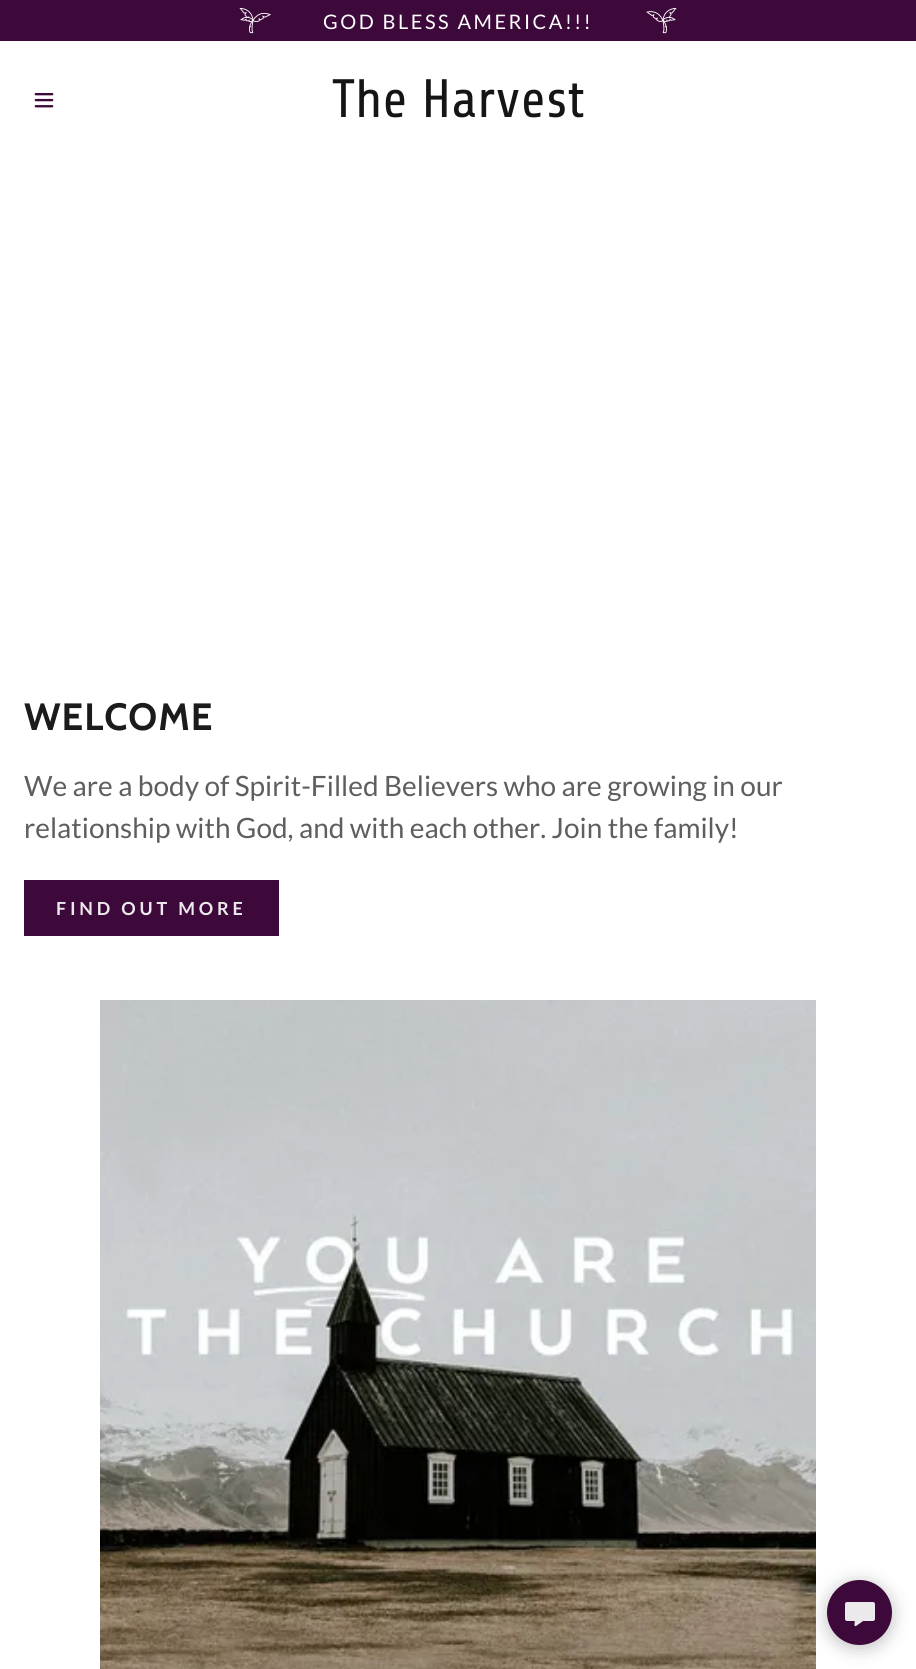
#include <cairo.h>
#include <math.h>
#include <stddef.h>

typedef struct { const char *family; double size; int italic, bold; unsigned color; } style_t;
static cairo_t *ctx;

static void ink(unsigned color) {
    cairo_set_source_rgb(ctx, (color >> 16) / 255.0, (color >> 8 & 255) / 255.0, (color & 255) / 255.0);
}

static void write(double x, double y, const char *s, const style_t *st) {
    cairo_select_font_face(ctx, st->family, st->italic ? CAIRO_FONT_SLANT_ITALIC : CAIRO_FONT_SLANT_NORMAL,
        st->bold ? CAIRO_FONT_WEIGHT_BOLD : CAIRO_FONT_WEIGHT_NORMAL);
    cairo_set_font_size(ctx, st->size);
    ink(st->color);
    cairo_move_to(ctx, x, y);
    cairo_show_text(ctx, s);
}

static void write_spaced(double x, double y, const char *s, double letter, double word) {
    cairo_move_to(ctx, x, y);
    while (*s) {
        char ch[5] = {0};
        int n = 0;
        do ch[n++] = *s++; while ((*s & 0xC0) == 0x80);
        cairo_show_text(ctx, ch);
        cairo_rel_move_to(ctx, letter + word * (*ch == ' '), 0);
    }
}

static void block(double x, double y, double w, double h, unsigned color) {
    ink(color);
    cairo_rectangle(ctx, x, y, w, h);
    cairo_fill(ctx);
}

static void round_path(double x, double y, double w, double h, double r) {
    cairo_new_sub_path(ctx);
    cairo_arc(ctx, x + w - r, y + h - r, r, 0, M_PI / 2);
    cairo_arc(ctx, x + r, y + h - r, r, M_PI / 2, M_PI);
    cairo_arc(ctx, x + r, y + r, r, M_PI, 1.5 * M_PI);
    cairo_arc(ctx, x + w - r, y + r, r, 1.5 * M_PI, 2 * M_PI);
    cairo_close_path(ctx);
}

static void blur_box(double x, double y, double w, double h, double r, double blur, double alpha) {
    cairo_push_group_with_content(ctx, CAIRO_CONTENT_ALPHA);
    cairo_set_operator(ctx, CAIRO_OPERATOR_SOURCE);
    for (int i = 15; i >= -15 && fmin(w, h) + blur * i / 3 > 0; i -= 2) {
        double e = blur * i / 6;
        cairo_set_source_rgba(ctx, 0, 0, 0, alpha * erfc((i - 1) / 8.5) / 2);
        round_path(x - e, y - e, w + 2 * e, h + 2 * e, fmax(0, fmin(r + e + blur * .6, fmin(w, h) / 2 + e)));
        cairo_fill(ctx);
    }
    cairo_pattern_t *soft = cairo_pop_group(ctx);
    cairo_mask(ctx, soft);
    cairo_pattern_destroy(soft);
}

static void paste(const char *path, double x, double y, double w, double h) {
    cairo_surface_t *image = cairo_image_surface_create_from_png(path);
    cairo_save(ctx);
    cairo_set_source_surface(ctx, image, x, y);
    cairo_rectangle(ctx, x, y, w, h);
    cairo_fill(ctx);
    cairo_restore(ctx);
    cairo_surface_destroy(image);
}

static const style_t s1 = {"Share", 54, 0, 0, 0x151515};
static const style_t s2 = {"Lato", 28, 0, 0, 0x5e5e5e};

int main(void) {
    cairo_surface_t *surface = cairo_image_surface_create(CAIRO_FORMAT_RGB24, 916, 1669);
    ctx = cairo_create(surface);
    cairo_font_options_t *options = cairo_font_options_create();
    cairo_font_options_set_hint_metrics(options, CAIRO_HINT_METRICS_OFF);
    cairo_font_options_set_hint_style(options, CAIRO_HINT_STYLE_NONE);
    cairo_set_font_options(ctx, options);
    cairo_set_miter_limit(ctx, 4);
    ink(0xffffff);
    cairo_paint(ctx);
    block(0, 0, 916, 41, 0x3d093b);
    paste("pic1.png", 239, 7, 32, 27);
    cairo_select_font_face(ctx, "Lato", CAIRO_FONT_SLANT_NORMAL, CAIRO_FONT_WEIGHT_NORMAL);
    cairo_set_font_size(ctx, 20);
    ink(0xffffff);
    write_spaced(323, 29, "GOD BLESS AMERICA!!!", 2.5, 0);
    paste("pic2.png", 646, 7, 31, 27);
    paste("pic3.png", 34, 93, 20, 15);
    write(332, 117, "The Harvest", &s1);
    cairo_select_font_face(ctx, "Cabin", CAIRO_FONT_SLANT_NORMAL, CAIRO_FONT_WEIGHT_BOLD);
    cairo_set_font_size(ctx, 38);
    ink(0x1b1b1b);
    write_spaced(24, 730, "WELCOME", 1, 0);
    write(24, 796, "We are a body of Spirit-Filled Believers who are growing in our", &s2);
    write(24, 838, "relationship with God, and with each other. Join the family!", &s2);
    block(24, 880, 255, 56, 0x3d093b);
    cairo_select_font_face(ctx, "Lato", CAIRO_FONT_SLANT_NORMAL, CAIRO_FONT_WEIGHT_BOLD);
    cairo_set_font_size(ctx, 18);
    ink(0xebe9eb);
    write_spaced(56, 915, "FIND OUT MORE", 3.8, 0);
    paste("pic4.png", 100, 1000, 716, 669);
    ink(0x000000);
    blur_box(827, 1583, 65, 65, 32.5, 9, 0.25);
    ink(0x3d093b);
    cairo_arc(ctx, 859.5, 1612.5, 32.5, 0, 2 * M_PI);
    cairo_fill(ctx);
    paste("pic5.png", 845, 1602, 30, 25);
    cairo_surface_write_to_png(surface, "screenshot.png");
    cairo_font_options_destroy(options);
    cairo_destroy(ctx);
    cairo_surface_destroy(surface);
    return 0;
}
